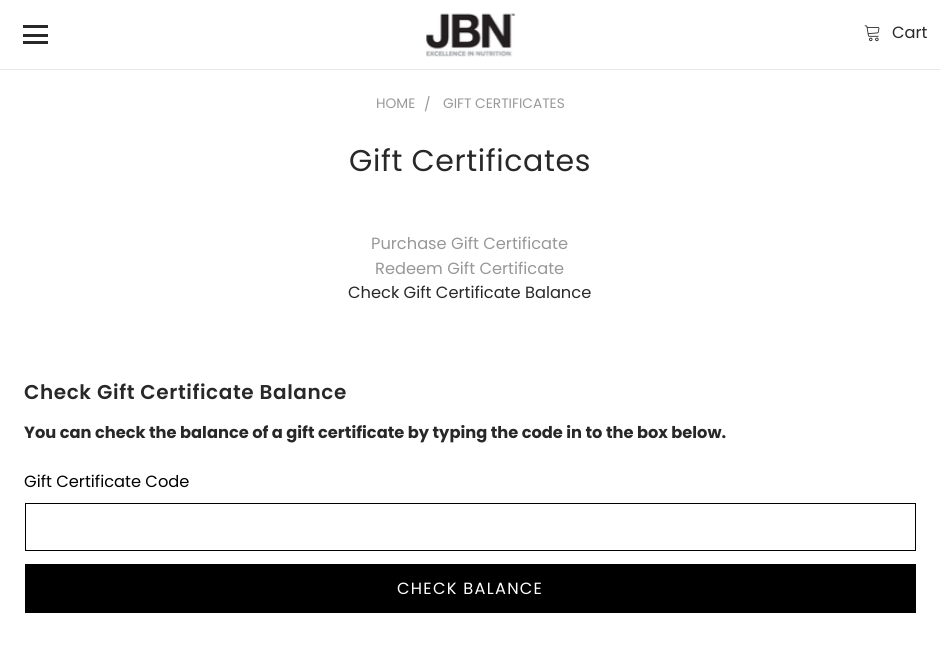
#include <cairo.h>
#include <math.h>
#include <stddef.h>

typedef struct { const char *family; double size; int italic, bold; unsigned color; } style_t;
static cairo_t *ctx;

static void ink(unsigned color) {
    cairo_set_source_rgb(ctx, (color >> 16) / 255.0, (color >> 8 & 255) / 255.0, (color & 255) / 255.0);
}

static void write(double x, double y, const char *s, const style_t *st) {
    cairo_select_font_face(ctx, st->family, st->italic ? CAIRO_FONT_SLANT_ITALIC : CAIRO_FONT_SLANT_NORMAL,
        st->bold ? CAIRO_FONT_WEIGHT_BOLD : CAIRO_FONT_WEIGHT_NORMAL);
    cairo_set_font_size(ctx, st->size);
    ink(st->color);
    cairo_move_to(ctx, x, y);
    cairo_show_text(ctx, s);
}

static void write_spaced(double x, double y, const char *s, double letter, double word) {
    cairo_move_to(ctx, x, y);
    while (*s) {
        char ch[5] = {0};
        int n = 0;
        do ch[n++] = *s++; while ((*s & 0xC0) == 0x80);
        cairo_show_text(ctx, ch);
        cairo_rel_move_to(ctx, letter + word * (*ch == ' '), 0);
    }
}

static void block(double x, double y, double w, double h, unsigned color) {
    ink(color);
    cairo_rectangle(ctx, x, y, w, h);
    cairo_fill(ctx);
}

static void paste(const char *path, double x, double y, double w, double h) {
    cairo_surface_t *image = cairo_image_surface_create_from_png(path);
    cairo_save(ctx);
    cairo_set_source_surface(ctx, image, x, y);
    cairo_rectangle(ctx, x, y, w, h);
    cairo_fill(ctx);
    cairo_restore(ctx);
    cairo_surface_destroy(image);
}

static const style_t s1 = {"Poppins", 16.25, 0, 0, 0x282828};
static const style_t s2 = {"Poppins", 13.75, 0, 0, 0x989898};
static const style_t s3 = {"Poppins", 16.25, 0, 0, 0x989898};
static const style_t s4 = {"Poppins", 16.25, 0, 1, 0x282828};
static const style_t s5 = {"Poppins", 16.25, 0, 0, 0x000000};

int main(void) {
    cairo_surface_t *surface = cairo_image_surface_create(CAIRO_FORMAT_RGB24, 940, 650);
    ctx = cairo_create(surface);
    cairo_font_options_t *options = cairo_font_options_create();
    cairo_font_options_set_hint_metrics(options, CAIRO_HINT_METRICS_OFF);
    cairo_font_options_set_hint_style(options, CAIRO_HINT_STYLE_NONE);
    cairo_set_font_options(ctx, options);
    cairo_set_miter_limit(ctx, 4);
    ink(0xffffff);
    cairo_paint(ctx);
    block(0, 69, 940, 1, 0xe8e8e8);
    block(23, 34, 25, 3, 0x282828);
    block(23, 25, 25, 3, 0x282828);
    block(23, 41, 25, 3, 0x282828);
    paste("pic1.png", 426, 13, 89, 44);
    paste("pic2.png", 864, 25, 16, 17);
    write(892, 38, "Cart", &s1);
    write(376, 108, "HOME", &s2);
    write(424, 109, "/", &s2);
    write(443, 108, "GIFT CERTIFICATES", &s2);
    cairo_set_font_size(ctx, 30);
    ink(0x282828);
    write_spaced(349, 171, "Gift Certificates", 0.6, 0);
    write(371, 249, "Purchase Gift Certificate", &s3);
    write(375, 274, "Redeem Gift Certificate", &s3);
    write(348, 298, "Check Gift Certificate Balance", &s1);
    cairo_select_font_face(ctx, "Poppins SemiBold", CAIRO_FONT_SLANT_NORMAL, CAIRO_FONT_WEIGHT_NORMAL);
    cairo_set_font_size(ctx, 20);
    write_spaced(24, 399, "Check Gift Certificate Balance", 0.6, 0);
    write(24, 438, "You can check the balance of a gift certificate by typing the code in to the box below.", &s4);
    write(24, 487, "Gift Certificate Code", &s5);
    cairo_rectangle(ctx, 25.5, 503.5, 890, 47);
    cairo_set_line_width(ctx, 1);
    cairo_stroke(ctx);
    block(25, 564, 891, 49, 0x000000);
    ink(0xffffff);
    write_spaced(397, 594, "CHECK BALANCE", 1.25, 0);
    cairo_surface_write_to_png(surface, "screenshot.png");
    cairo_font_options_destroy(options);
    cairo_destroy(ctx);
    cairo_surface_destroy(surface);
    return 0;
}
